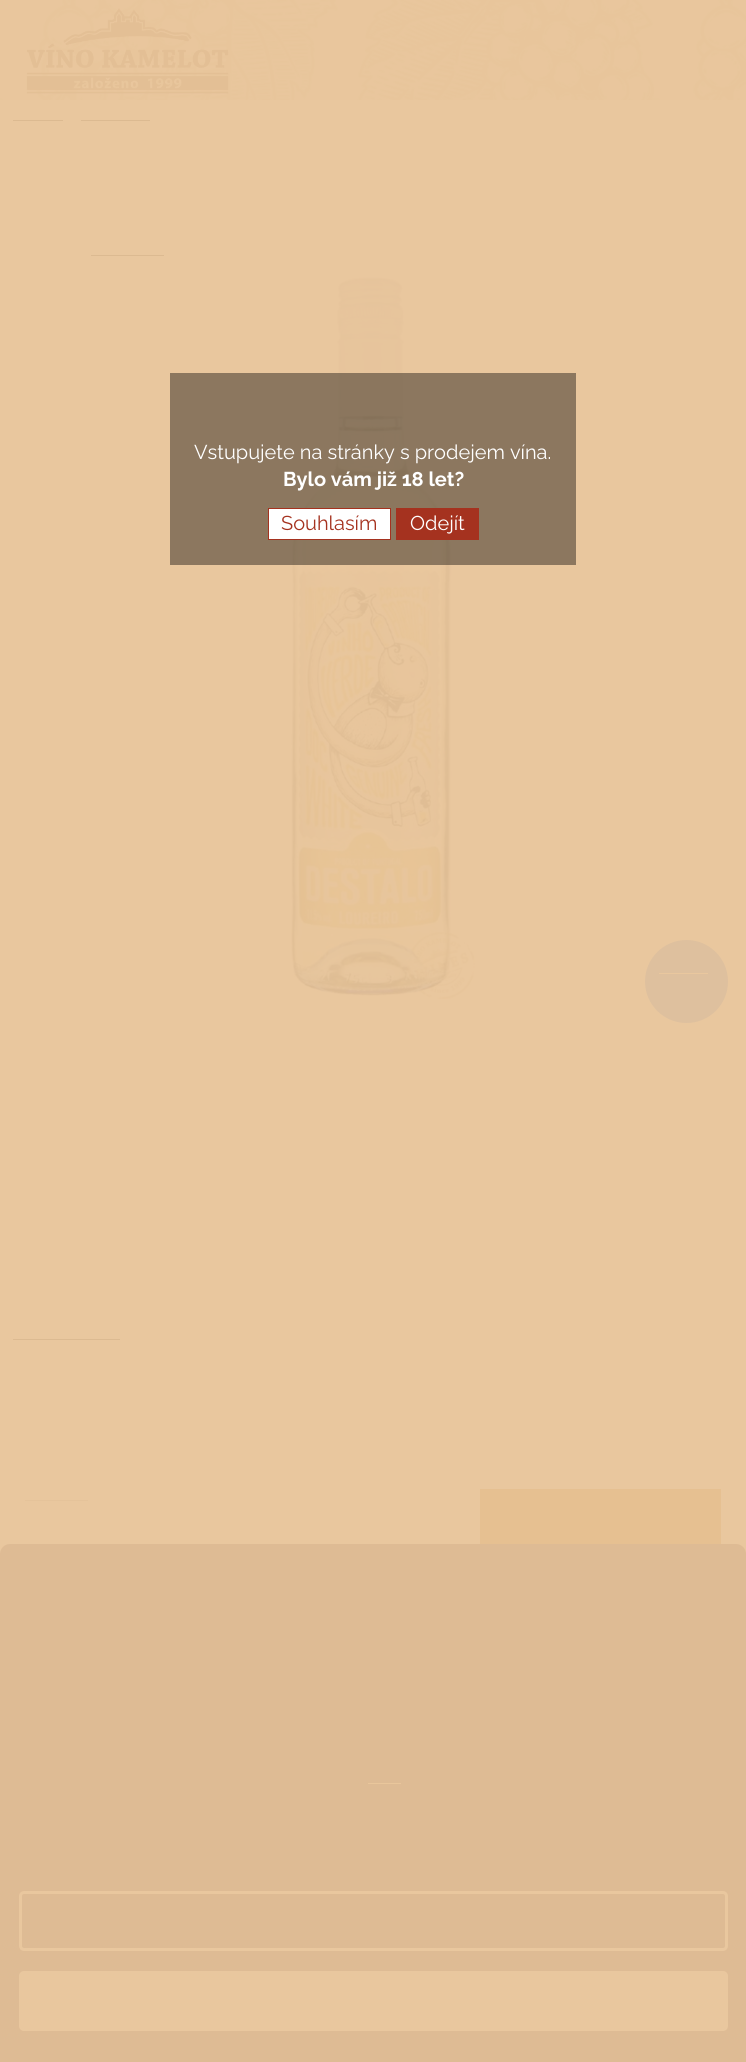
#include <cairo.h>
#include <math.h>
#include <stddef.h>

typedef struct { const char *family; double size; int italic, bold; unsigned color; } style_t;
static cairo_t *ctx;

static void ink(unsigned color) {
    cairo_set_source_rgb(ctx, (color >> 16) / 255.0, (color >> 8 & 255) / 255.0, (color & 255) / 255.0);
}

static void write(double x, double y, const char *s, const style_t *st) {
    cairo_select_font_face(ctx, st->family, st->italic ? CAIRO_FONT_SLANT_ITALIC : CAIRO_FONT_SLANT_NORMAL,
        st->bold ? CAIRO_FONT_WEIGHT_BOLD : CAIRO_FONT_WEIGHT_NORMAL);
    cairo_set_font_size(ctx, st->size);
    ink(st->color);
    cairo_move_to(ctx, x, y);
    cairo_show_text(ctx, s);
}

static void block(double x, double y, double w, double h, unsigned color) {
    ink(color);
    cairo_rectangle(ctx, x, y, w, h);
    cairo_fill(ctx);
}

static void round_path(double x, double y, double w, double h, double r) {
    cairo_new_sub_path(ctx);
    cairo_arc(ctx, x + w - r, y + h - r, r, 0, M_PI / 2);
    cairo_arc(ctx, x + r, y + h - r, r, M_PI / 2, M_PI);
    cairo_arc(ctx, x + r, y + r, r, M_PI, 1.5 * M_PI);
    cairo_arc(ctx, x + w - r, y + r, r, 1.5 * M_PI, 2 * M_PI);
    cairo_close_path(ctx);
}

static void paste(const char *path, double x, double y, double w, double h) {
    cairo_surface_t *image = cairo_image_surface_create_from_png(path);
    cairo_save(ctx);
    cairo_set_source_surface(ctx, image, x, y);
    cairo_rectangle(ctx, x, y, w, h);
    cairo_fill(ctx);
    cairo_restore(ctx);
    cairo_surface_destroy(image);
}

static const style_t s1 = {"Raleway", 20, 0, 0, 0xffffff};
static const style_t s2 = {"Raleway", 20, 0, 1, 0xffffff};
static const style_t s3 = {"Raleway", 20, 0, 0, 0xa5321f};

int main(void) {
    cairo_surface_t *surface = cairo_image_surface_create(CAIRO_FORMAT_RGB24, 746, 2062);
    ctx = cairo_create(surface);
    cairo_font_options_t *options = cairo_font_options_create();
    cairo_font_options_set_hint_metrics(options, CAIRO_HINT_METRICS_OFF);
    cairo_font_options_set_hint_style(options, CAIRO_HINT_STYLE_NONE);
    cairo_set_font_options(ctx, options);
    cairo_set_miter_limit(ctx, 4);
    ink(0xe9c79e);
    cairo_paint(ctx);
    paste("pic1.png", 0, 0, 746, 100);
    paste("pic2.png", 26, 8, 203, 86);
    block(13, 120, 50, 1, 0xdcba91);
    block(81, 120, 69, 1, 0xdcba91);
    block(91, 255, 73, 1, 0xdcba91);
    paste("pic3.png", 289, 277, 187, 722);
    ink(0xdec09e);
    cairo_arc(ctx, 686.5, 981.5, 41.5, 0, 2 * M_PI);
    cairo_fill(ctx);
    block(659, 973, 49, 1, 0xe9c79e);
    block(13, 1339, 107, 1, 0xdcba91);
    block(25, 1500, 63, 1, 0xe5c39a);
    block(480, 1489, 241, 55, 0xe6c091);
    cairo_set_source_rgba(ctx, 0, 0, 0, 0.4);
    cairo_rectangle(ctx, 170, 373, 406, 192);
    cairo_fill(ctx);
    write(194, 459, "Vstupujete na stránky s prodejem vína.", &s1);
    write(283, 486, "Bylo vám již 18 let?", &s2);
    cairo_rectangle(ctx, 268.5, 508.5, 122, 31);
    cairo_fill_preserve(ctx);
    ink(0xa5321f);
    cairo_set_line_width(ctx, 1);
    cairo_stroke(ctx);
    write(281, 530, "Souhlasím", &s3);
    block(396, 508, 83, 32, 0xa5321f);
    write(410, 530, "Odejít", &s1);
    ink(0xdebb94);
    cairo_new_path(ctx);
    cairo_move_to(ctx, 10, 1544);
    cairo_line_to(ctx, 736, 1544);
    cairo_curve_to(ctx, 741.5, 1544, 746, 1548.5, 746, 1554);
    cairo_line_to(ctx, 746, 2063);
    cairo_line_to(ctx, 0, 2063);
    cairo_line_to(ctx, 0, 1554);
    cairo_curve_to(ctx, 0, 1548.5, 4.5, 1544, 10, 1544);
    cairo_close_path(ctx);
    cairo_fill(ctx);
    block(368, 1783, 33, 1, 0xe9c69b);
    round_path(20.5, 1892.5, 706, 57, 3.5);
    ink(0xe9c79e);
    cairo_set_line_width(ctx, 3);
    cairo_stroke(ctx);
    round_path(19, 1971, 709, 60, 5);
    cairo_fill(ctx);
    cairo_surface_write_to_png(surface, "screenshot.png");
    cairo_font_options_destroy(options);
    cairo_destroy(ctx);
    cairo_surface_destroy(surface);
    return 0;
}
